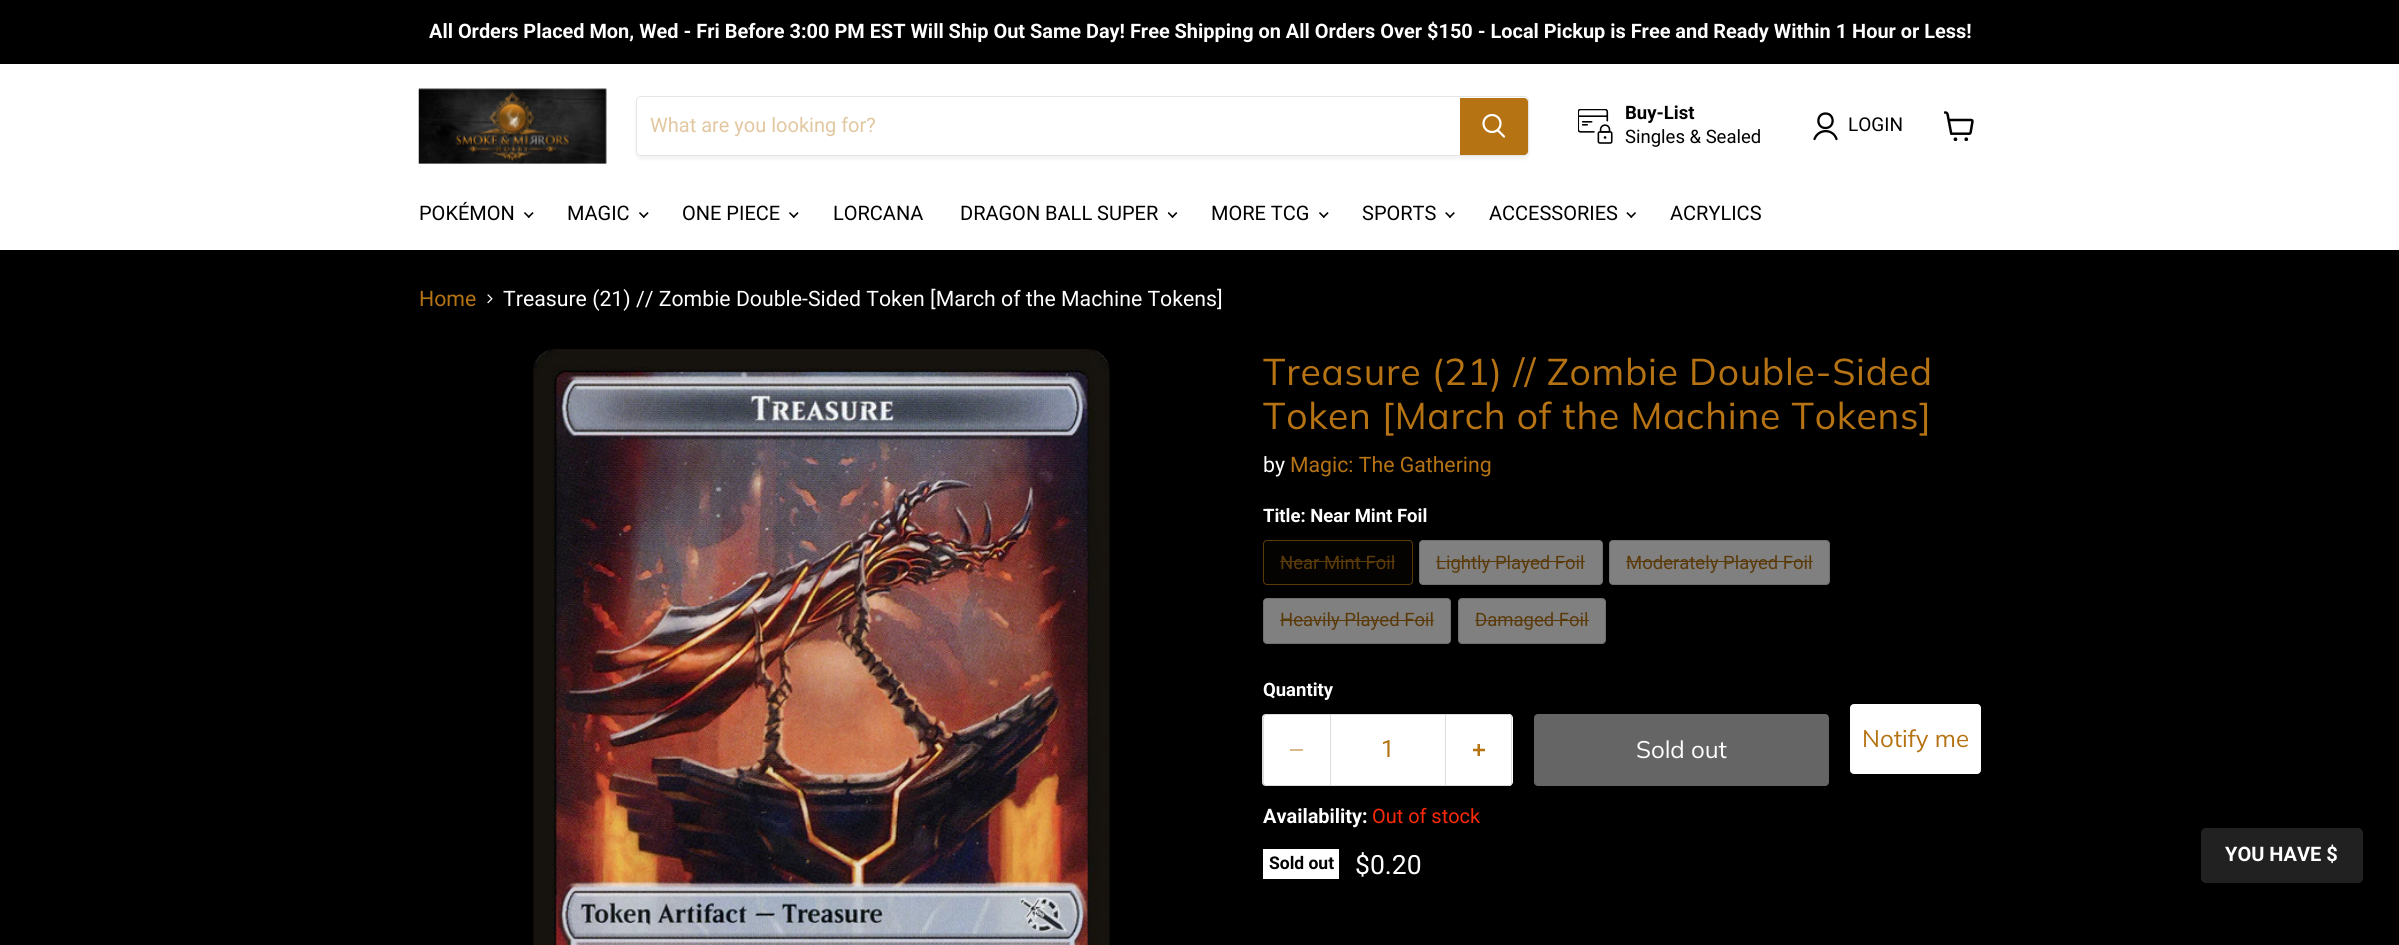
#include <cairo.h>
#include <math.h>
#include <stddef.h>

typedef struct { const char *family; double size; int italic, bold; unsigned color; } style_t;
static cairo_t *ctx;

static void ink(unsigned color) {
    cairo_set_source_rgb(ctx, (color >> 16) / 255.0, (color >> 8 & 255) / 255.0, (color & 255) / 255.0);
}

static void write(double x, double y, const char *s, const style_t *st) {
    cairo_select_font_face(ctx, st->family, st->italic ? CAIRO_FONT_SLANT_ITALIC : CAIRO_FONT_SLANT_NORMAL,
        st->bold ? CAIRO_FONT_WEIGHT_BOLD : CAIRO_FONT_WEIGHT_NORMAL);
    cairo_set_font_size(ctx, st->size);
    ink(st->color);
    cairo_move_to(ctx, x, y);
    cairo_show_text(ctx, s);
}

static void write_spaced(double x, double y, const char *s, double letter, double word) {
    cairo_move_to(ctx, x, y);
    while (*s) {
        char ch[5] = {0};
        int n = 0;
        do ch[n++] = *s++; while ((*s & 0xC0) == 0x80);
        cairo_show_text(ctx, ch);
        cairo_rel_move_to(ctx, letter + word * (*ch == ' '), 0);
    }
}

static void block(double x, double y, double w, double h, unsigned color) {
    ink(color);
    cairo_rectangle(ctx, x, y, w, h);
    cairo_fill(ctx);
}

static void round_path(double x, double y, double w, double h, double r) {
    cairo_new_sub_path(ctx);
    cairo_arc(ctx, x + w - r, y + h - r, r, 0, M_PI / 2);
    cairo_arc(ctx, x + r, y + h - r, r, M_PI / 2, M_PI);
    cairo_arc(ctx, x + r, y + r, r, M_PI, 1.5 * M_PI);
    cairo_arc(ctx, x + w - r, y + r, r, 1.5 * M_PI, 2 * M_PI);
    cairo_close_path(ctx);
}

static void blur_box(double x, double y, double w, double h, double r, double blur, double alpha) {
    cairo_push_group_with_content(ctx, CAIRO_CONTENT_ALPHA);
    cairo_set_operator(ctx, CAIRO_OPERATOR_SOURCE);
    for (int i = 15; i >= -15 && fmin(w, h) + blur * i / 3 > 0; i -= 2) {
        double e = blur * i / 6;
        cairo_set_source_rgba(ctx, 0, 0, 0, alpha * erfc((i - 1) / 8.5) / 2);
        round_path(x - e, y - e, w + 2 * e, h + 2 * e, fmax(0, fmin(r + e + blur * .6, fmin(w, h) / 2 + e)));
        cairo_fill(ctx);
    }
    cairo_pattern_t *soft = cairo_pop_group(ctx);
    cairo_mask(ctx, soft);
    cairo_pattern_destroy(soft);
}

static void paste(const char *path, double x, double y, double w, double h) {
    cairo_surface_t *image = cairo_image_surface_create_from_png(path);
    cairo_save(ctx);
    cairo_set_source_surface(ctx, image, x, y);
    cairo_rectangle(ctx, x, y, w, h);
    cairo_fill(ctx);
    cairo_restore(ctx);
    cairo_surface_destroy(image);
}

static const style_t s1 = {"Roboto", 19.92, 0, 1, 0xffffff};
static const style_t s2 = {"Roboto", 20, 0, 0, 0xe2c7a1};
static const style_t s3 = {"Roboto", 18.5, 0, 1, 0x000000};
static const style_t s4 = {"Roboto", 18.5, 0, 0, 0x000000};
static const style_t s5 = {"Roboto", 19, 0, 0, 0x000000};
static const style_t s6 = {"Roboto", 20, 0, 0, 0x000000};
static const style_t s7 = {"Roboto", 21.25, 0, 0, 0xb67314};
static const style_t s8 = {"Roboto", 21.25, 0, 0, 0xffffff};
static const style_t s9 = {"Roboto", 18.5, 0, 1, 0xffffff};
static const style_t s10 = {"Roboto", 18.5, 0, 0, 0x5b3a0a};
static const style_t s11 = {"Roboto", 24, 0, 0, 0xb67314};
static const style_t s12 = {"Muli", 24, 0, 0, 0xffffff};
static const style_t s13 = {"Muli", 24, 0, 0, 0xb67314};
static const style_t s14 = {"Roboto", 19.92, 0, 0, 0xfd2908};
static const style_t s15 = {"Roboto", 17.5, 0, 1, 0x000000};
static const style_t s16 = {"Roboto", 26.5, 0, 0, 0xffffff};
static const style_t s17 = {"Roboto", 20, 0, 1, 0xffffff};

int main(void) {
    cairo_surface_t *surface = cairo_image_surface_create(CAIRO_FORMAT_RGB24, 2399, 945);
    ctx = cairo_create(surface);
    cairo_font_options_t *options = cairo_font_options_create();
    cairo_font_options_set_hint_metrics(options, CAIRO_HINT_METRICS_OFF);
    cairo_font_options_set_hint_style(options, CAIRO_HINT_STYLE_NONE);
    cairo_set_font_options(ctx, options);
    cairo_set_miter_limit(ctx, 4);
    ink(0x000000);
    cairo_paint(ctx);
    write(429, 38, "All Orders Placed Mon, Wed - Fri Before 3:00 PM EST Will Ship Out Same Day! Free Shipping on All Orders Over $150 - Local Pickup is Free and Ready Within 1 Hour or Less!", &s1);
    block(0, 64, 2399, 186, 0xffffff);
    paste("pic1.png", 418, 88, 189, 76);
    cairo_save(ctx);
    cairo_set_fill_rule(ctx, CAIRO_FILL_RULE_EVEN_ODD);
    cairo_new_path(ctx);
    cairo_move_to(ctx, 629, 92);
    cairo_line_to(ctx, 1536, 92);
    cairo_line_to(ctx, 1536, 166);
    cairo_line_to(ctx, 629, 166);
    cairo_close_path(ctx);
    cairo_move_to(ctx, 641, 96);
    cairo_line_to(ctx, 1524, 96);
    cairo_curve_to(ctx, 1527, 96, 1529, 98, 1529, 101);
    cairo_line_to(ctx, 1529, 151);
    cairo_curve_to(ctx, 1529, 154, 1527, 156, 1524, 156);
    cairo_line_to(ctx, 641, 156);
    cairo_curve_to(ctx, 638, 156, 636, 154, 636, 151);
    cairo_line_to(ctx, 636, 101);
    cairo_curve_to(ctx, 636, 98, 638, 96, 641, 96);
    cairo_close_path(ctx);
    cairo_clip(ctx);
    ink(0x808080);
    blur_box(636, 99, 893, 60, 5, 2, 0.11);
    cairo_restore(ctx);
    round_path(636.5, 96.5, 892, 59, 4.5);
    cairo_set_source_rgba(ctx, 0.502, 0.502, 0.502, 0.2);
    cairo_set_line_width(ctx, 1);
    cairo_stroke(ctx);
    write(650, 132, "What are you looking for?", &s2);
    ink(0xb67314);
    cairo_new_path(ctx);
    cairo_move_to(ctx, 1460.5, 98.5);
    cairo_line_to(ctx, 1524, 98.5);
    cairo_curve_to(ctx, 1526, 98.5, 1527.5, 100, 1527.5, 102);
    cairo_line_to(ctx, 1527.5, 151);
    cairo_curve_to(ctx, 1527.5, 153, 1526, 154.5, 1524, 154.5);
    cairo_line_to(ctx, 1460.5, 154.5);
    cairo_close_path(ctx);
    cairo_fill_preserve(ctx);
    cairo_stroke(ctx);
    cairo_new_path(ctx);
    cairo_move_to(ctx, 1504, 136.5);
    cairo_line_to(ctx, 1498, 130.5);
    ink(0xffffff);
    cairo_set_line_width(ctx, 2.2);
    cairo_set_line_cap(ctx, CAIRO_LINE_CAP_ROUND);
    cairo_stroke(ctx);
    cairo_arc(ctx, 1492, 123.5, 8.5, 0, 2 * M_PI);
    cairo_set_line_cap(ctx, CAIRO_LINE_CAP_BUTT);
    cairo_stroke(ctx);
    paste("pic2.png", 1578, 109, 35, 35);
    write(1625, 119, "Buy-List", &s3);
    write(1625, 143, "Singles & Sealed", &s4);
    cairo_new_path(ctx);
    cairo_move_to(ctx, 1825.5, 128);
    cairo_curve_to(ctx, 1835, 128, 1835, 113.5, 1825.5, 113.5);
    cairo_curve_to(ctx, 1816, 113.5, 1816, 128, 1825.5, 128);
    cairo_close_path(ctx);
    cairo_move_to(ctx, 1836.5, 139);
    cairo_curve_to(ctx, 1833, 128.5, 1818.5, 128.5, 1814.5, 139);
    cairo_set_line_width(ctx, 2.3);
    cairo_set_line_cap(ctx, CAIRO_LINE_CAP_ROUND);
    cairo_set_line_join(ctx, CAIRO_LINE_JOIN_ROUND);
    cairo_stroke(ctx);
    write(1848, 131, "LOGIN", &s5);
    paste("pic3.png", 1944, 111, 30, 30);
    write(419, 220, "POKÉMON", &s6);
    paste("pic4.png", 524, 212, 10, 6);
    write(567, 220, "MAGIC", &s6);
    paste("pic4.png", 639, 212, 10, 6);
    write(682, 220, "ONE PIECE", &s6);
    paste("pic4.png", 789, 212, 10, 6);
    write(833, 220, "LORCANA", &s6);
    write(960, 220, "DRAGON BALL SUPER", &s6);
    paste("pic5.png", 1168, 212, 10, 6);
    write(1211, 220, "MORE TCG", &s6);
    paste("pic4.png", 1319, 212, 10, 6);
    write(1362, 220, "SPORTS", &s6);
    paste("pic6.png", 1445, 212, 10, 6);
    write(1489, 220, "ACCESSORIES", &s6);
    paste("pic7.png", 1626, 212, 10, 6);
    write(1670, 220, "ACRYLICS", &s6);
    write(419, 306, "Home", &s7);
    paste("pic8.png", 487, 294, 6, 10);
    write(503, 306, "Treasure (21) // Zombie Double-Sided Token [March of the Machine Tokens]", &s8);
    paste("pic9.png", 533, 349, 577, 596);
    cairo_select_font_face(ctx, "Muli", CAIRO_FONT_SLANT_NORMAL, CAIRO_FONT_WEIGHT_NORMAL);
    cairo_set_font_size(ctx, 37.2);
    ink(0xb67314);
    write_spaced(1263, 385, "Treasure (21) // Zombie Double-Sided", 0.75, 0);
    write_spaced(1263, 429, "Token [March of the Machine Tokens]", 0.75, 0);
    write(1263, 472, "by", &s8);
    write(1290, 472, "Magic: The Gathering", &s7);
    write(1263, 522, "Title: Near Mint Foil", &s9);
    ink(0x050301);
    round_path(1263.5, 540.5, 149, 44, 3.5);
    cairo_fill_preserve(ctx);
    ink(0x5b3a0a);
    cairo_set_line_width(ctx, 1);
    cairo_set_line_cap(ctx, CAIRO_LINE_CAP_BUTT);
    cairo_set_line_join(ctx, CAIRO_LINE_JOIN_MITER);
    cairo_stroke(ctx);
    write(1280, 569, "Near Mint Foil", &s10);
    block(1280, 561, 115, 1, 0x5b3a0a);
    ink(0x808080);
    round_path(1419.5, 540.5, 183, 44, 3.5);
    cairo_fill_preserve(ctx);
    ink(0x6f6f6f);
    cairo_stroke(ctx);
    write(1436, 569, "Lightly Played Foil", &s10);
    block(1436, 561, 149, 1, 0x5b3a0a);
    ink(0x808080);
    round_path(1609.5, 540.5, 220, 44, 3.5);
    cairo_fill_preserve(ctx);
    ink(0x6f6f6f);
    cairo_stroke(ctx);
    write(1626, 569, "Moderately Played Foil", &s10);
    block(1626, 561, 187, 1, 0x5b3a0a);
    ink(0x808080);
    round_path(1263.5, 598.5, 187, 45, 3.5);
    cairo_fill_preserve(ctx);
    ink(0x6f6f6f);
    cairo_stroke(ctx);
    write(1280, 626, "Heavily Played Foil", &s10);
    block(1280, 620, 154, 1, 0x5b3a0a);
    ink(0x808080);
    round_path(1458.5, 598.5, 147, 45, 3.5);
    cairo_fill_preserve(ctx);
    ink(0x6f6f6f);
    cairo_stroke(ctx);
    write(1475, 626, "Damaged Foil", &s10);
    block(1475, 620, 114, 1, 0x5b3a0a);
    write(1263, 696, "Quantity", &s9);
    cairo_new_path(ctx);
    cairo_move_to(ctx, 1267, 714);
    cairo_line_to(ctx, 1330, 714);
    cairo_line_to(ctx, 1330, 786);
    cairo_line_to(ctx, 1267, 786);
    cairo_curve_to(ctx, 1265, 786, 1263, 784, 1263, 782);
    cairo_line_to(ctx, 1263, 718);
    cairo_curve_to(ctx, 1263, 716, 1265, 714, 1267, 714);
    cairo_close_path(ctx);
    cairo_fill(ctx);
    ink(0xdddddd);
    cairo_set_fill_rule(ctx, CAIRO_FILL_RULE_EVEN_ODD);
    cairo_new_path(ctx);
    cairo_move_to(ctx, 1266, 714);
    cairo_line_to(ctx, 1330, 714);
    cairo_line_to(ctx, 1330, 786);
    cairo_line_to(ctx, 1266, 786);
    cairo_curve_to(ctx, 1264, 786, 1262, 785, 1262, 782);
    cairo_line_to(ctx, 1262, 718);
    cairo_curve_to(ctx, 1262, 715, 1264, 714, 1266, 714);
    cairo_close_path(ctx);
    cairo_move_to(ctx, 1266, 715);
    cairo_line_to(ctx, 1330, 715);
    cairo_line_to(ctx, 1330, 785);
    cairo_line_to(ctx, 1266, 785);
    cairo_curve_to(ctx, 1265, 785, 1264, 784, 1264, 782);
    cairo_line_to(ctx, 1264, 718);
    cairo_curve_to(ctx, 1264, 716, 1265, 715, 1266, 715);
    cairo_close_path(ctx);
    cairo_fill(ctx);
    block(1290, 749, 13, 2, 0xdbb98a);
    ink(0xffffff);
    cairo_rectangle(ctx, 1330.5, 714.5, 115, 71);
    cairo_fill_preserve(ctx);
    ink(0xdddddd);
    cairo_stroke(ctx);
    write(1381, 757, "1", &s11);
    ink(0xffffff);
    cairo_new_path(ctx);
    cairo_move_to(ctx, 1446, 714);
    cairo_line_to(ctx, 1509, 714);
    cairo_curve_to(ctx, 1511, 714, 1513, 716, 1513, 718);
    cairo_line_to(ctx, 1513, 782);
    cairo_curve_to(ctx, 1513, 784, 1511, 786, 1509, 786);
    cairo_line_to(ctx, 1446, 786);
    cairo_close_path(ctx);
    cairo_fill(ctx);
    ink(0xdddddd);
    cairo_new_path(ctx);
    cairo_move_to(ctx, 1446, 714);
    cairo_line_to(ctx, 1509, 714);
    cairo_curve_to(ctx, 1511, 714, 1512, 715, 1512, 718);
    cairo_line_to(ctx, 1512, 782);
    cairo_curve_to(ctx, 1512, 785, 1511, 786, 1509, 786);
    cairo_line_to(ctx, 1446, 786);
    cairo_close_path(ctx);
    cairo_move_to(ctx, 1446, 715);
    cairo_line_to(ctx, 1509, 715);
    cairo_curve_to(ctx, 1510, 715, 1511, 716, 1511, 718);
    cairo_line_to(ctx, 1511, 782);
    cairo_curve_to(ctx, 1511, 784, 1510, 785, 1509, 785);
    cairo_line_to(ctx, 1446, 785);
    cairo_close_path(ctx);
    cairo_fill(ctx);
    paste("pic10.png", 1473, 744, 12, 12);
    ink(0x656565);
    round_path(1534.5, 714.5, 294, 71, 3.5);
    cairo_fill_preserve(ctx);
    cairo_stroke(ctx);
    write(1636, 758, "Sold out", &s12);
    round_path(1850, 704, 131, 70, 4);
    cairo_fill(ctx);
    write(1862, 747, "Notify me", &s13);
    write(1263, 823, "Availability:", &s1);
    write(1372, 823, "Out of stock", &s14);
    block(1263, 849, 76, 30, 0xffffff);
    write(1269, 869, "Sold out", &s15);
    write(1355, 874, "$0.20", &s16);
    ink(0x212121);
    round_path(2201, 828, 162, 55, 5);
    cairo_fill(ctx);
    write(2225, 861, "YOU HAVE $", &s17);
    cairo_surface_write_to_png(surface, "screenshot.png");
    cairo_font_options_destroy(options);
    cairo_destroy(ctx);
    cairo_surface_destroy(surface);
    return 0;
}
